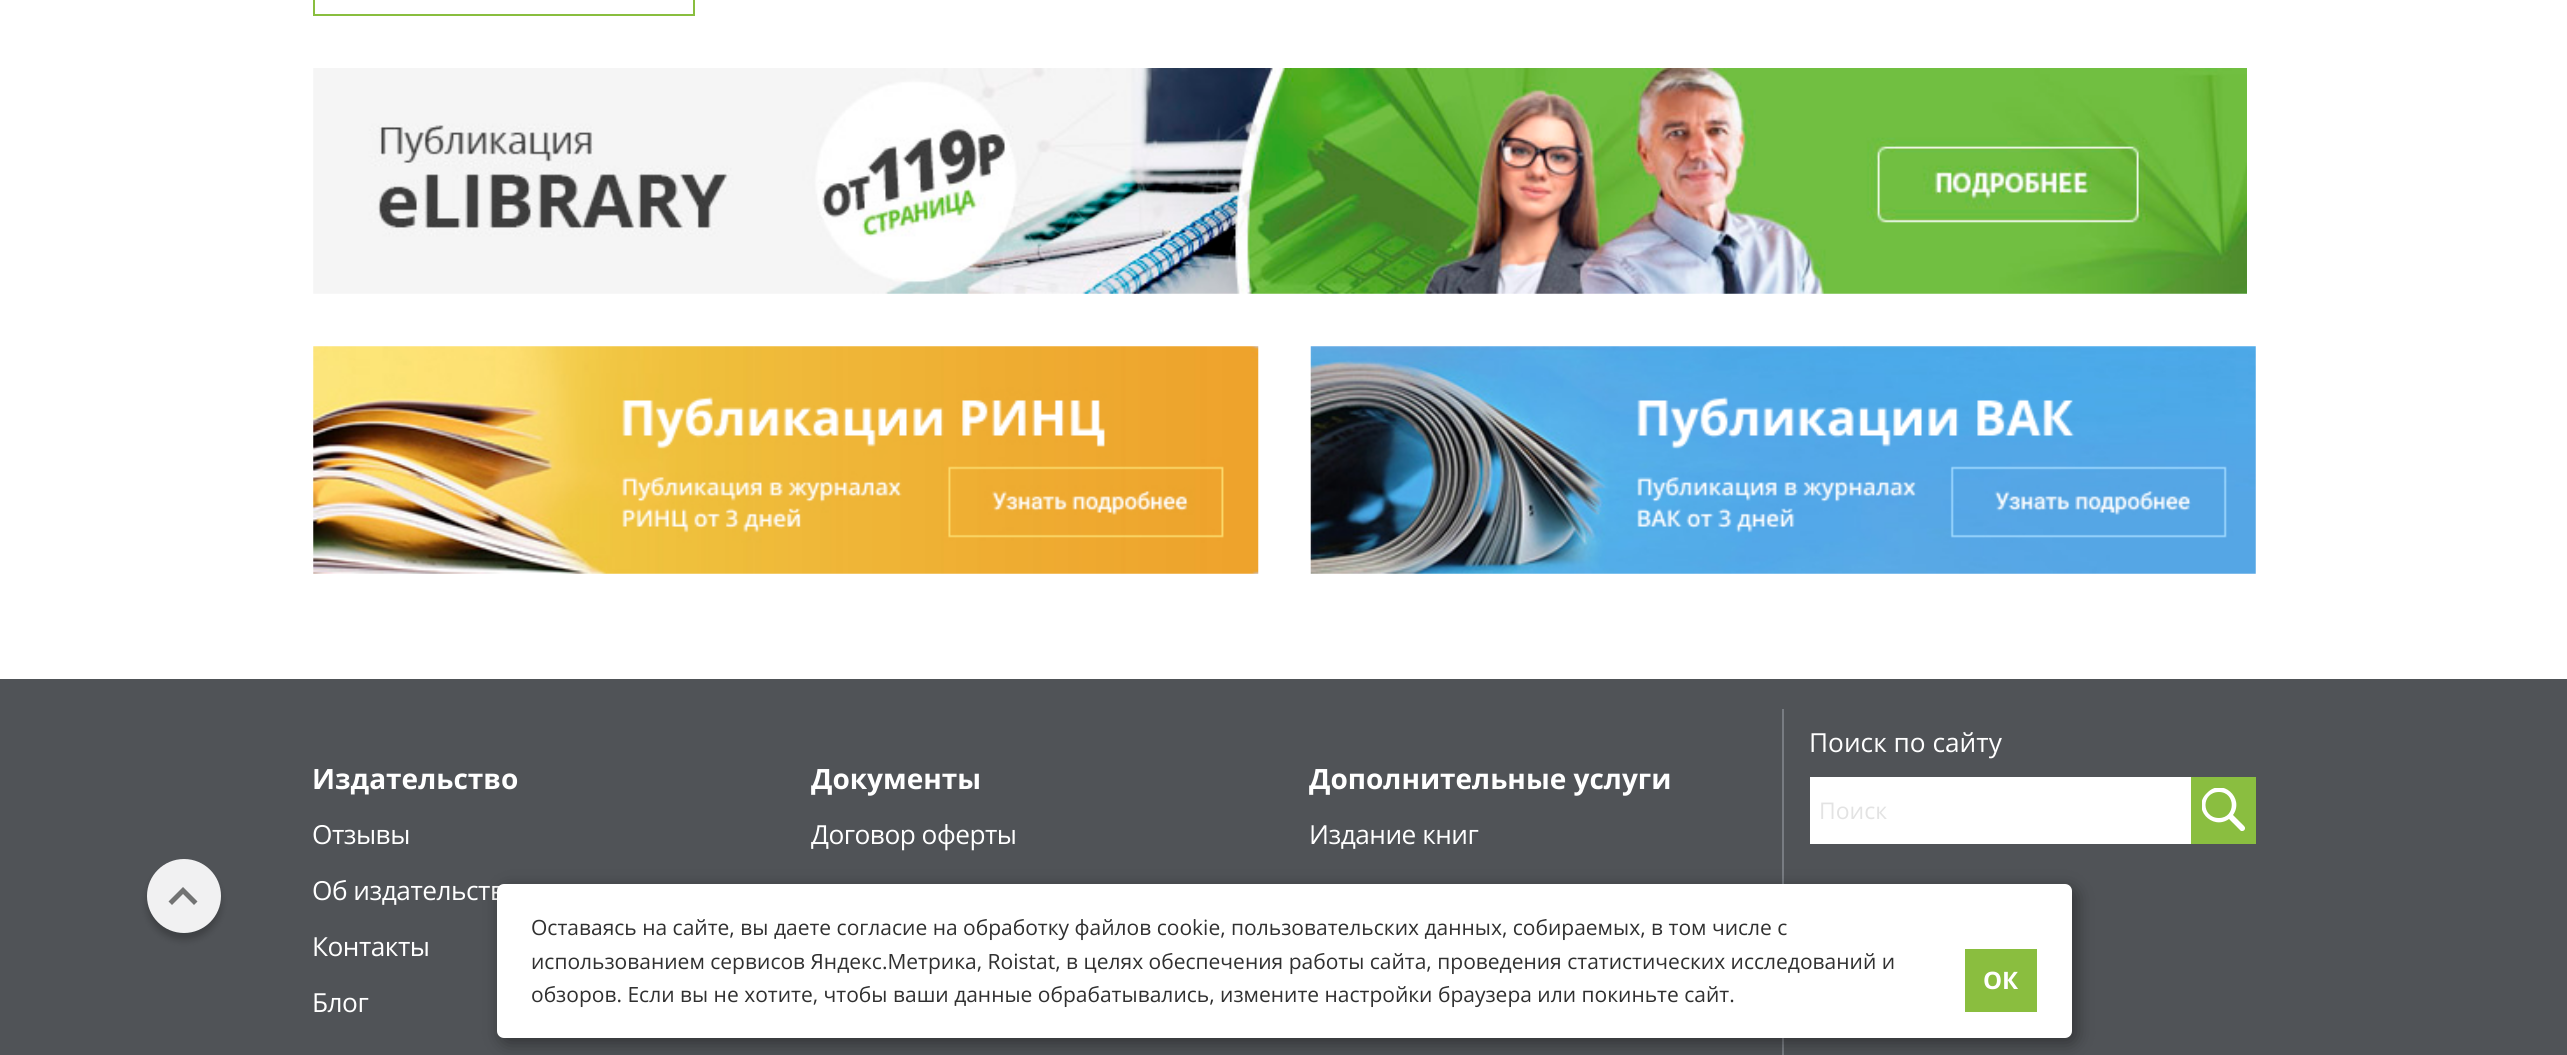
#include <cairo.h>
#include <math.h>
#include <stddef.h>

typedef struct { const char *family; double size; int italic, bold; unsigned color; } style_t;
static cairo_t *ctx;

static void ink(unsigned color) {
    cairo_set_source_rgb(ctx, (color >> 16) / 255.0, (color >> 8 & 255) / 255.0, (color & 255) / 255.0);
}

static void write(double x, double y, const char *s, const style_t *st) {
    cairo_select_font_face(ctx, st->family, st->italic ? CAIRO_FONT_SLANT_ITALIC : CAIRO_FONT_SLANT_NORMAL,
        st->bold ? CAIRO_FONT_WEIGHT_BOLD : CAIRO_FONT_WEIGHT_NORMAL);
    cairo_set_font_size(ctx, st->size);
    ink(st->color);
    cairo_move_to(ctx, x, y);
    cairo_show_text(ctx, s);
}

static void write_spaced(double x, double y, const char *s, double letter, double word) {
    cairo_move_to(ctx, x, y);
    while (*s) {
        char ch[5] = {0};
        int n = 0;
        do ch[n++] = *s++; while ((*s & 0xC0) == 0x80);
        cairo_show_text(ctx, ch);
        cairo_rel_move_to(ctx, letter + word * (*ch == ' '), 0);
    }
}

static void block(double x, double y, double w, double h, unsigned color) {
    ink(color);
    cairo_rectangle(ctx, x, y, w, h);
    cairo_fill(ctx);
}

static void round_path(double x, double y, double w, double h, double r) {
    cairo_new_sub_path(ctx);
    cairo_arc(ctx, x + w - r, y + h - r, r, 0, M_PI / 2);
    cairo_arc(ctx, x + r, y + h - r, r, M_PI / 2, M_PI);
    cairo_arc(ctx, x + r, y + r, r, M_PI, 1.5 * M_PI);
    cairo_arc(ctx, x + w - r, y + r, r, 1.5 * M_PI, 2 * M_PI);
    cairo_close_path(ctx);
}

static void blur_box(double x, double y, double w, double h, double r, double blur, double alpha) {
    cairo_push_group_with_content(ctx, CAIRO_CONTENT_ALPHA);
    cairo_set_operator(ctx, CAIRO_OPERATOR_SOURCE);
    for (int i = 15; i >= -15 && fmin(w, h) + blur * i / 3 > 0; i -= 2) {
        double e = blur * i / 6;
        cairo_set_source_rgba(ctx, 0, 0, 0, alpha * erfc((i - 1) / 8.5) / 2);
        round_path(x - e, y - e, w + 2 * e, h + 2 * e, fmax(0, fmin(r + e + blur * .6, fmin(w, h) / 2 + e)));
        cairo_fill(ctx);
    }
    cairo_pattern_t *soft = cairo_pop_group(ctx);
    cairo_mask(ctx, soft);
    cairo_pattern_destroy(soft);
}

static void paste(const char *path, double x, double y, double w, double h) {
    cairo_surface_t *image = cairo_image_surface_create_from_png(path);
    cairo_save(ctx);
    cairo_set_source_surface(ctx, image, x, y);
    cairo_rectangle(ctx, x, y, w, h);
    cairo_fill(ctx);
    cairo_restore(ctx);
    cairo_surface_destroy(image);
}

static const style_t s1 = {"Open Sans", 28, 0, 1, 0xffffff};
static const style_t s2 = {"Open Sans", 26.25, 0, 0, 0xffffff};
static const style_t s3 = {"Open Sans", 23, 0, 0, 0xe3e3e3};
static const style_t s4 = {"Open Sans", 21, 0, 0, 0x303030};
static const style_t s5 = {"Open Sans", 24, 0, 1, 0xffffff};

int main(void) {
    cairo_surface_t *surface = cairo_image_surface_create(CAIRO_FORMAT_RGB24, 2567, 1055);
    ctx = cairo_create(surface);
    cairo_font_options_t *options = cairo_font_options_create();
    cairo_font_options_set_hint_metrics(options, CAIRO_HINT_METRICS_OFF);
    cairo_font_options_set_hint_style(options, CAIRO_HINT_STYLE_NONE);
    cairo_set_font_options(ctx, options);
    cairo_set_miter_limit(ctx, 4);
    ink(0xffffff);
    cairo_paint(ctx);
    cairo_rectangle(ctx, 314, -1, 380, 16);
    ink(0x89be3f);
    cairo_stroke(ctx);
    paste("pic1.png", 313, 68, 1934, 226);
    paste("pic2.png", 313, 346, 946, 228);
    paste("pic3.png", 1310, 346, 946, 228);
    block(0, 679, 2567, 376, 0x505357);
    ink(0x060707);
    blur_box(147, 866, 74, 74, 37, 3.5, 0.24);
    ink(0xf1f1f2);
    cairo_arc(ctx, 184, 896, 37, 0, 2 * M_PI);
    cairo_fill(ctx);
    ink(0x727373);
    cairo_set_fill_rule(ctx, CAIRO_FILL_RULE_EVEN_ODD);
    cairo_new_path(ctx);
    cairo_move_to(ctx, 183, 887);
    cairo_line_to(ctx, 168.5, 901.5);
    cairo_line_to(ctx, 172, 905);
    cairo_line_to(ctx, 183, 894);
    cairo_line_to(ctx, 194, 905);
    cairo_line_to(ctx, 197.5, 901.5);
    cairo_close_path(ctx);
    cairo_fill(ctx);
    block(1782, 709, 2, 346, 0x787c82);
    write(312, 789, "Издательство", &s1);
    cairo_select_font_face(ctx, "Open Sans", CAIRO_FONT_SLANT_NORMAL, CAIRO_FONT_WEIGHT_NORMAL);
    cairo_set_font_size(ctx, 26.25);
    write_spaced(312, 844, "Отзывы", -0.5, 0);
    write_spaced(312, 900, "Об издательств", -0.5, 0);
    write_spaced(312, 956, "Контакты", -0.5, 0);
    write_spaced(312, 1012, "Блог", -0.5, 0);
    write(811, 789, "Документы", &s1);
    cairo_select_font_face(ctx, "Open Sans", CAIRO_FONT_SLANT_NORMAL, CAIRO_FONT_WEIGHT_NORMAL);
    cairo_set_font_size(ctx, 26.25);
    write_spaced(811, 844, "Договор оферты", -0.5, 0);
    write(1309, 789, "Дополнительные услуги", &s1);
    cairo_select_font_face(ctx, "Open Sans", CAIRO_FONT_SLANT_NORMAL, CAIRO_FONT_WEIGHT_NORMAL);
    cairo_set_font_size(ctx, 26.25);
    write_spaced(1309, 844, "Издание книг", -0.5, 0);
    write(1809, 752, "Поиск по сайту", &s2);
    block(1810, 777, 381, 67, 0xffffff);
    write(1819, 819, "Поиск", &s3);
    block(2191, 777, 65, 67, 0x8abe40);
    cairo_save(ctx);
    cairo_set_fill_rule(ctx, CAIRO_FILL_RULE_WINDING);
    cairo_rectangle(ctx, 2202, 788, 43, 43);
    cairo_clip(ctx);
    ink(0xffffff);
    cairo_new_path(ctx);
    cairo_move_to(ctx, 2244, 826);
    cairo_line_to(ctx, 2233, 815);
    cairo_curve_to(ctx, 2245, 798, 2222, 777, 2207, 793);
    cairo_curve_to(ctx, 2191, 808, 2212, 831, 2229, 819);
    cairo_line_to(ctx, 2241, 831);
    cairo_curve_to(ctx, 2243, 832, 2247, 829, 2244, 826);
    cairo_close_path(ctx);
    cairo_move_to(ctx, 2219, 818);
    cairo_curve_to(ctx, 2201, 818, 2201, 792, 2219, 792);
    cairo_curve_to(ctx, 2236, 792, 2236, 818, 2219, 818);
    cairo_close_path(ctx);
    cairo_fill(ctx);
    cairo_restore(ctx);
    ink(0x000000);
    blur_box(501, 889, 1575, 154, 7, 9, 0.4);
    ink(0xffffff);
    round_path(497, 884, 1575, 154, 7);
    cairo_fill(ctx);
    write(531, 935, "Оставаясь на сайте, вы даете согласие на обработку файлов cookie, пользовательских данных, собираемых, в том числе с", &s4);
    write(531, 969, "использованием сервисов Яндекс.Метрика, Roistat, в целях обеспечения работы сайта, проведения статистических исследований и", &s4);
    write(531, 1002, "обзоров. Если вы не хотите, чтобы ваши данные обрабатывались, измените настройки браузера или покиньте сайт.", &s4);
    block(1965, 949, 72, 63, 0x8abe3f);
    write(1983, 989, "ОК", &s5);
    cairo_surface_write_to_png(surface, "screenshot.png");
    cairo_font_options_destroy(options);
    cairo_destroy(ctx);
    cairo_surface_destroy(surface);
    return 0;
}
